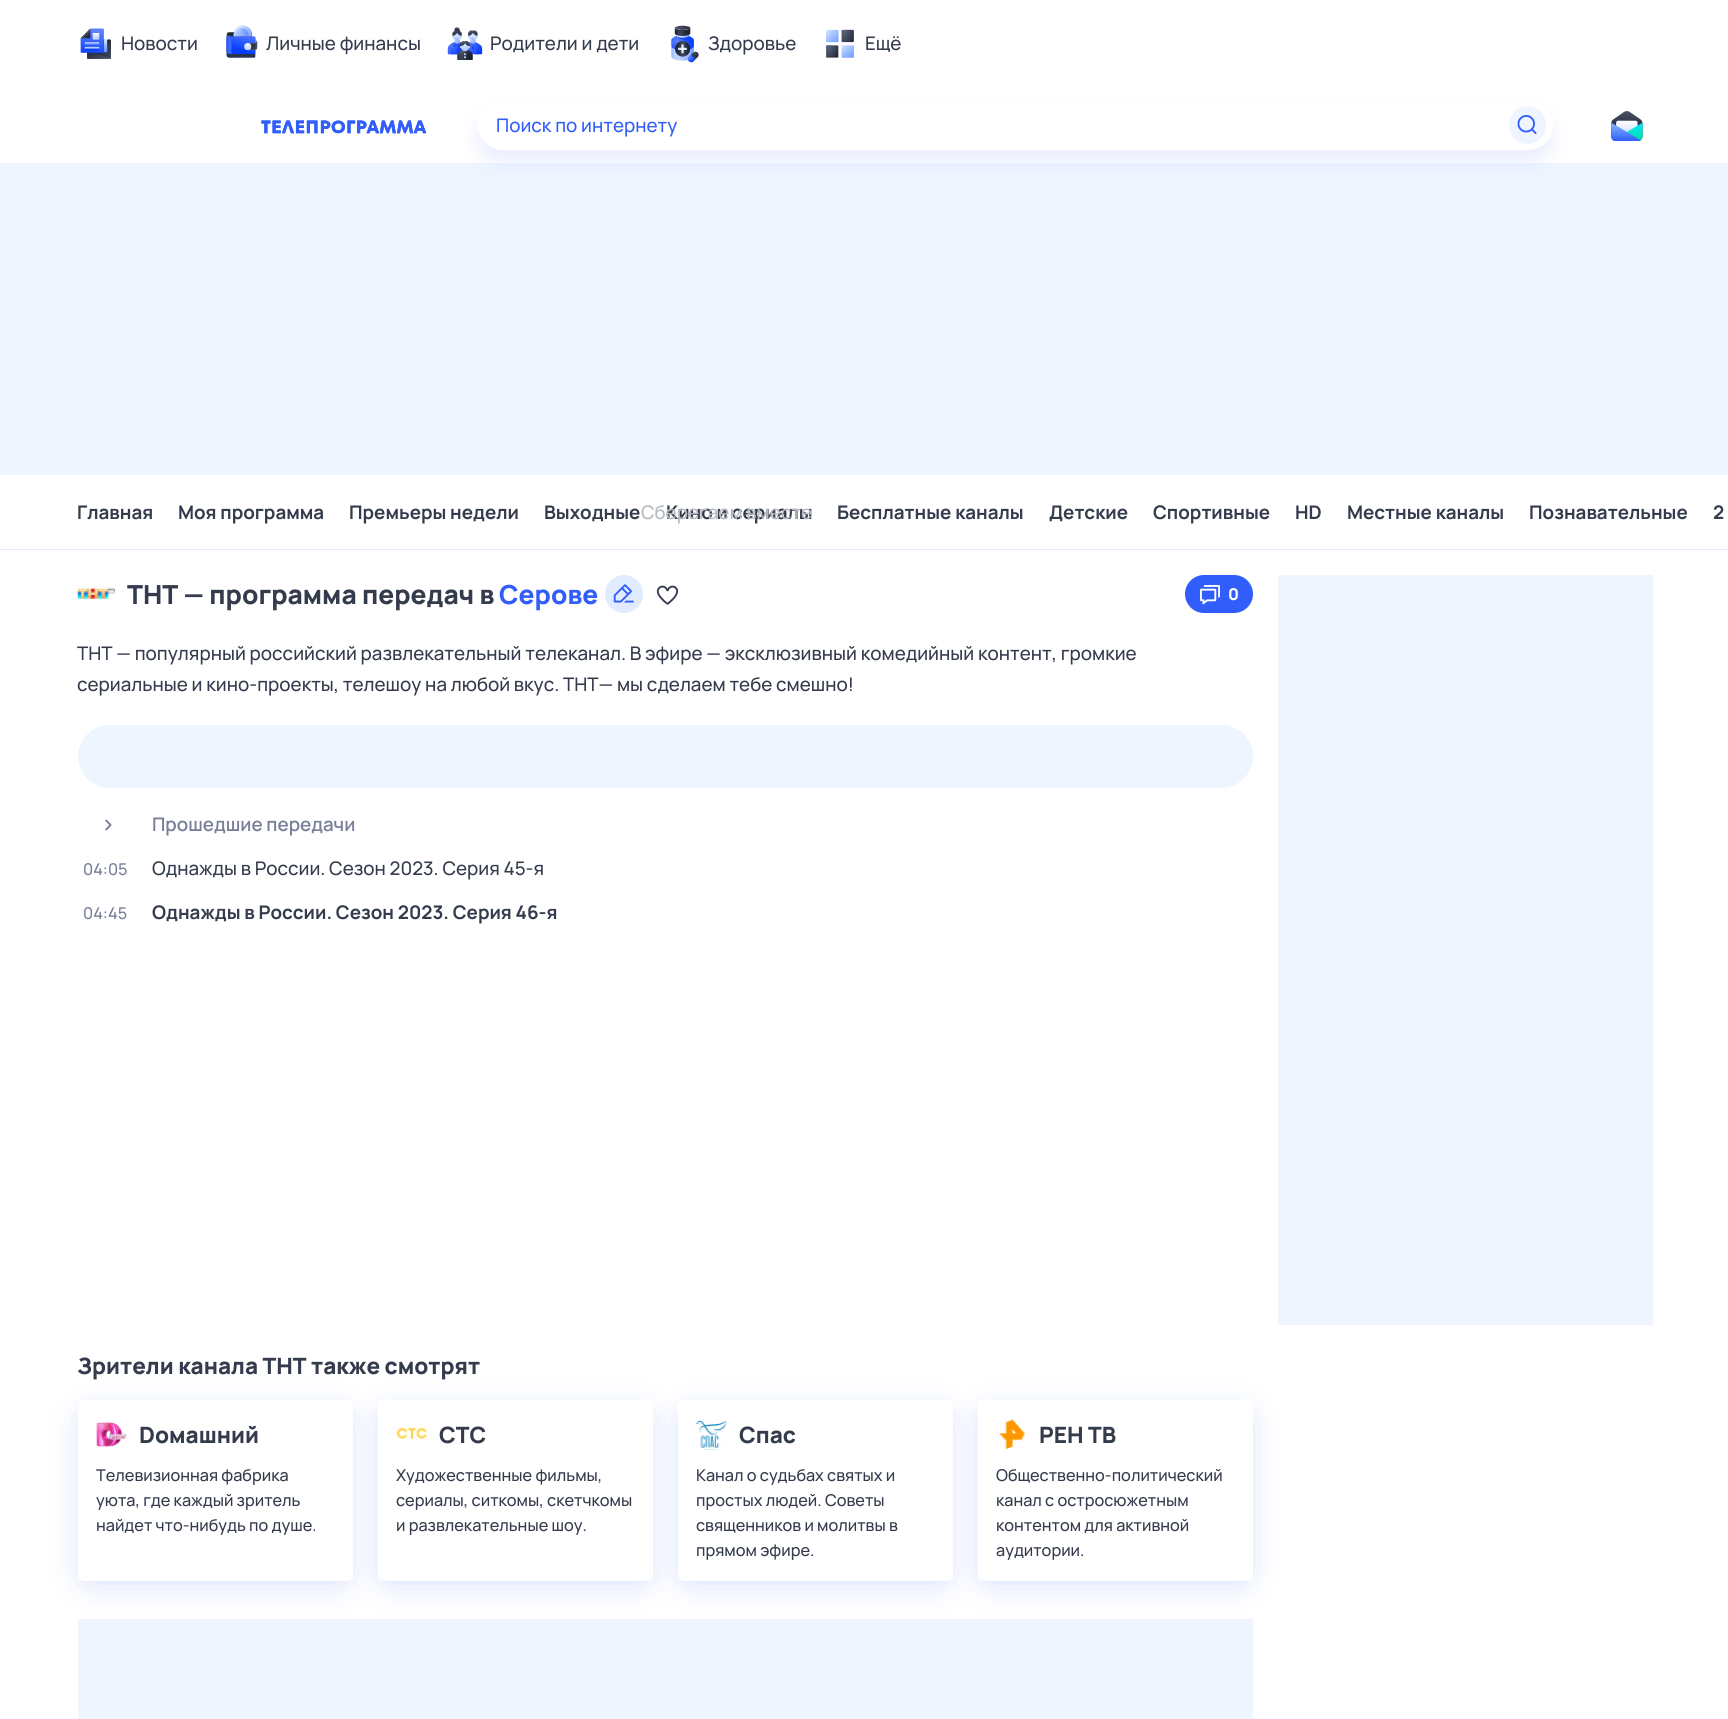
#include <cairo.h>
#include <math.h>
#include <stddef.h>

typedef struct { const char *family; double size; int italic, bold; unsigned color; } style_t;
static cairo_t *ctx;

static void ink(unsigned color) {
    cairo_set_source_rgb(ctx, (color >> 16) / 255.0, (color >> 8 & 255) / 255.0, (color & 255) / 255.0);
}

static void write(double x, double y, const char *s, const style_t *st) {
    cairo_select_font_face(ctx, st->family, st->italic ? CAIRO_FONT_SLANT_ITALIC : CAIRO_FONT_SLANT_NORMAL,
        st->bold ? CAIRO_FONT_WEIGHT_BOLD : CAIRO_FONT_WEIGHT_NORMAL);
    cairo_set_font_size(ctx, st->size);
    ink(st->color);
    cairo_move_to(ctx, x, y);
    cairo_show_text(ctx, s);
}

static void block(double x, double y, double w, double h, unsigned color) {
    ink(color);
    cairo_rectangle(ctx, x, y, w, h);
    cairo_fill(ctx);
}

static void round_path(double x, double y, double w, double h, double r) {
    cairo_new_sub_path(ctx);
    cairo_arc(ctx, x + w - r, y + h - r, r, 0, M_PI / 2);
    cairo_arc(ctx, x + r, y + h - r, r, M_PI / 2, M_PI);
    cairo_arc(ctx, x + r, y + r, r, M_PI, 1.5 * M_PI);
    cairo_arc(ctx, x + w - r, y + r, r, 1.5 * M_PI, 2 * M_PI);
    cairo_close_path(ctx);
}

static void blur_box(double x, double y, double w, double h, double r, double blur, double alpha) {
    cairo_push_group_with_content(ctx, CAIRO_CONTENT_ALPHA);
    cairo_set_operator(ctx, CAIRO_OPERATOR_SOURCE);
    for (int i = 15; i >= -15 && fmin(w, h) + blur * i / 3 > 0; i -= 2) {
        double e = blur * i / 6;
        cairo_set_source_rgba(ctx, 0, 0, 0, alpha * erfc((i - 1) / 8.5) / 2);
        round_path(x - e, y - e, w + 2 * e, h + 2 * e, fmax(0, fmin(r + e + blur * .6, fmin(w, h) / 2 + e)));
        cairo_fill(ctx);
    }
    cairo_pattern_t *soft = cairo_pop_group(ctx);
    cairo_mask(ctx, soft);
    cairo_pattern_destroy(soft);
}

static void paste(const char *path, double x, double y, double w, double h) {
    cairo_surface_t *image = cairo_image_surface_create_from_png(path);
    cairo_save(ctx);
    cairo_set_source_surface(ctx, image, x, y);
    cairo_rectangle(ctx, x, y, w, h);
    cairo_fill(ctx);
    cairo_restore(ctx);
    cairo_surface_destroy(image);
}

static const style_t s1 = {"Manrope Medium", 18.75, 0, 0, 0x343b4c};
static const style_t s2 = {"Manrope", 18.75, 0, 1, 0x343b4c};
static const style_t s3 = {"Manrope Medium", 18.75, 0, 0, 0xb6b9bf};
static const style_t s4 = {"Manrope Medium", 18.75, 0, 0, 0x315efb};
static const style_t s5 = {"Manrope ExtraBold", 26.25, 0, 0, 0x343b4c};
static const style_t s6 = {"Manrope ExtraBold", 26.25, 0, 0, 0x315efb};
static const style_t s7 = {"Manrope ExtraBold", 16.25, 0, 0, 0xffffff};
static const style_t s8 = {"Manrope SemiBold", 18.75, 0, 0, 0x777e98};
static const style_t s9 = {"Manrope Medium", 16.25, 0, 0, 0x777e98};
static const style_t s10 = {"Manrope ExtraBold", 22.5, 0, 0, 0x343b4c};
static const style_t s11 = {"Manrope Medium", 16.25, 0, 0, 0x343b4c};

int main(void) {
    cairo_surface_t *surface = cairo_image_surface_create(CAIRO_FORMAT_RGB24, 1728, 1719);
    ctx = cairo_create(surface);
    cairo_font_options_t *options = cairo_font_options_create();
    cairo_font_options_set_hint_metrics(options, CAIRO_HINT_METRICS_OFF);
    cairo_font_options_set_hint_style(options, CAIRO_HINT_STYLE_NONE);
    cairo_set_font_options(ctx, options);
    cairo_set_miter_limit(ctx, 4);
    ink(0xffffff);
    cairo_paint(ctx);
    paste("pic1.png", 80, 28, 31, 31);
    write(121, 50, "Новости", &s1);
    paste("pic2.png", 226, 25, 32, 33);
    write(266, 50, "Личные финансы", &s1);
    paste("pic3.png", 447, 27, 36, 33);
    write(490, 50, "Родители и дети", &s1);
    paste("pic4.png", 671, 25, 28, 38);
    write(708, 50, "Здоровье", &s1);
    paste("pic5.png", 826, 29, 28, 29);
    write(865, 50, "Ещё", &s1);
    write(666, 519, "Кино и сериалы", &s2);
    write(641, 519, "Сберегаем вместе", &s3);
    paste("pic6.png", 261, 120, 166, 14);
    block(0, 163, 1728, 312, 0xeff5ff);
    ink(0x315efb);
    blur_box(484, 119, 1062, 37, 18.5, 12.5, 0.15);
    ink(0xffffff);
    round_path(478, 100, 1075, 50, 25);
    cairo_fill(ctx);
    write(496, 132, "Поиск по интернету", &s4);
    ink(0xeff5ff);
    round_path(1509, 106, 37, 38, 18.5);
    cairo_fill(ctx);
    paste("pic7.png", 1517, 115, 20, 20);
    paste("pic8.png", 1611, 111, 32, 30);
    block(0, 549, 1728, 1, 0xe0ebff);
    write(77, 519, "Главная", &s2);
    write(178, 519, "Моя программа", &s2);
    write(349, 519, "Премьеры недели", &s2);
    write(544, 519, "Выходные", &s2);
    write(837, 519, "Бесплатные каналы", &s2);
    write(1049, 519, "Детские", &s2);
    write(1153, 519, "Спортивные", &s2);
    write(1295, 519, "HD", &s2);
    write(1347, 519, "Местные каналы", &s2);
    write(1529, 519, "Познавательные", &s2);
    write(1713, 519, "2", &s2);
    paste("pic9.png", 77, 587, 38, 12);
    write(127, 604, "ТНТ — программа передач в", &s5);
    write(499, 604, "Серове", &s6);
    ink(0xe0ebff);
    cairo_new_path(ctx);
    cairo_arc(ctx, 624, 594, 19, 0, 2 * M_PI);
    cairo_fill(ctx);
    paste("pic10.png", 613, 584, 21, 19);
    paste("pic11.png", 656, 585, 23, 20);
    ink(0x315efb);
    round_path(1185, 575, 68, 38, 19);
    cairo_fill(ctx);
    paste("pic12.png", 1200, 585, 20, 20);
    write(1228, 600, "0", &s7);
    write(77, 660, "ТНТ — популярный российский развлекательный телеканал. В эфире — эксклюзивный комедийный контент, громкие", &s1);
    write(77, 691, "сериальные и кино‑проекты, телешоу на любой вкус. ТНТ— мы сделаем тебе смешно!", &s1);
    ink(0xeff5ff);
    round_path(78, 725, 1175, 63, 31.5);
    cairo_fill(ctx);
    paste("pic13.png", 105, 819, 7, 12);
    write(152, 831, "Прошедшие передачи", &s8);
    write(83, 875, "04:05", &s9);
    write(152, 875, "Однажды в России. Сезон 2023. Серия 45-я", &s1);
    write(83, 919, "04:45", &s9);
    write(152, 919, "Однажды в России. Сезон 2023. Серия 46-я", &s2);
    block(1278, 575, 375, 750, 0xeff5ff);
    write(77, 1374, "Зрители канала ТНТ также смотрят", &s10);
    block(78, 1619, 1175, 100, 0xeff5ff);
    ink(0x315efb);
    blur_box(90, 1419, 250, 156, 0, 19, 0.3);
    ink(0xffffff);
    round_path(78, 1400, 275, 181, 6);
    cairo_fill(ctx);
    paste("pic14.png", 96, 1421, 31, 26);
    write(139, 1443, "Dомашний", &s10);
    write(96, 1481, "Телевизионная фабрика", &s11);
    write(96, 1506, "уюта, где каждый зритель", &s11);
    write(96, 1531, "найдет что‑нибудь по душе.", &s11);
    ink(0x315efb);
    blur_box(390, 1419, 250, 156, 0, 19, 0.3);
    ink(0xffffff);
    round_path(378, 1400, 275, 181, 6);
    cairo_fill(ctx);
    paste("pic15.png", 396, 1427, 32, 13);
    write(439, 1443, "СТС", &s10);
    write(396, 1481, "Художественные фильмы,", &s11);
    write(396, 1506, "сериалы, ситкомы, скетчкомы", &s11);
    write(396, 1531, "и развлекательные шоу.", &s11);
    ink(0x315efb);
    blur_box(690, 1419, 250, 156, 0, 19, 0.3);
    ink(0xffffff);
    round_path(678, 1400, 275, 181, 6);
    cairo_fill(ctx);
    paste("pic16.png", 696, 1420, 31, 30);
    write(739, 1443, "Спас", &s10);
    write(696, 1481, "Канал о судьбах святых и", &s11);
    write(696, 1506, "простых людей. Советы", &s11);
    write(696, 1531, "священников и молитвы в", &s11);
    write(696, 1556, "прямом эфире.", &s11);
    ink(0x315efb);
    blur_box(990, 1419, 250, 156, 0, 19, 0.3);
    ink(0xffffff);
    round_path(978, 1400, 275, 181, 6);
    cairo_fill(ctx);
    paste("pic17.png", 999, 1419, 26, 30);
    write(1039, 1443, "РЕН ТВ", &s10);
    write(996, 1481, "Общественно-политический", &s11);
    write(996, 1506, "канал с остросюжетным", &s11);
    write(996, 1531, "контентом для активной", &s11);
    write(996, 1556, "аудитории.", &s11);
    cairo_surface_write_to_png(surface, "screenshot.png");
    cairo_font_options_destroy(options);
    cairo_destroy(ctx);
    cairo_surface_destroy(surface);
    return 0;
}
